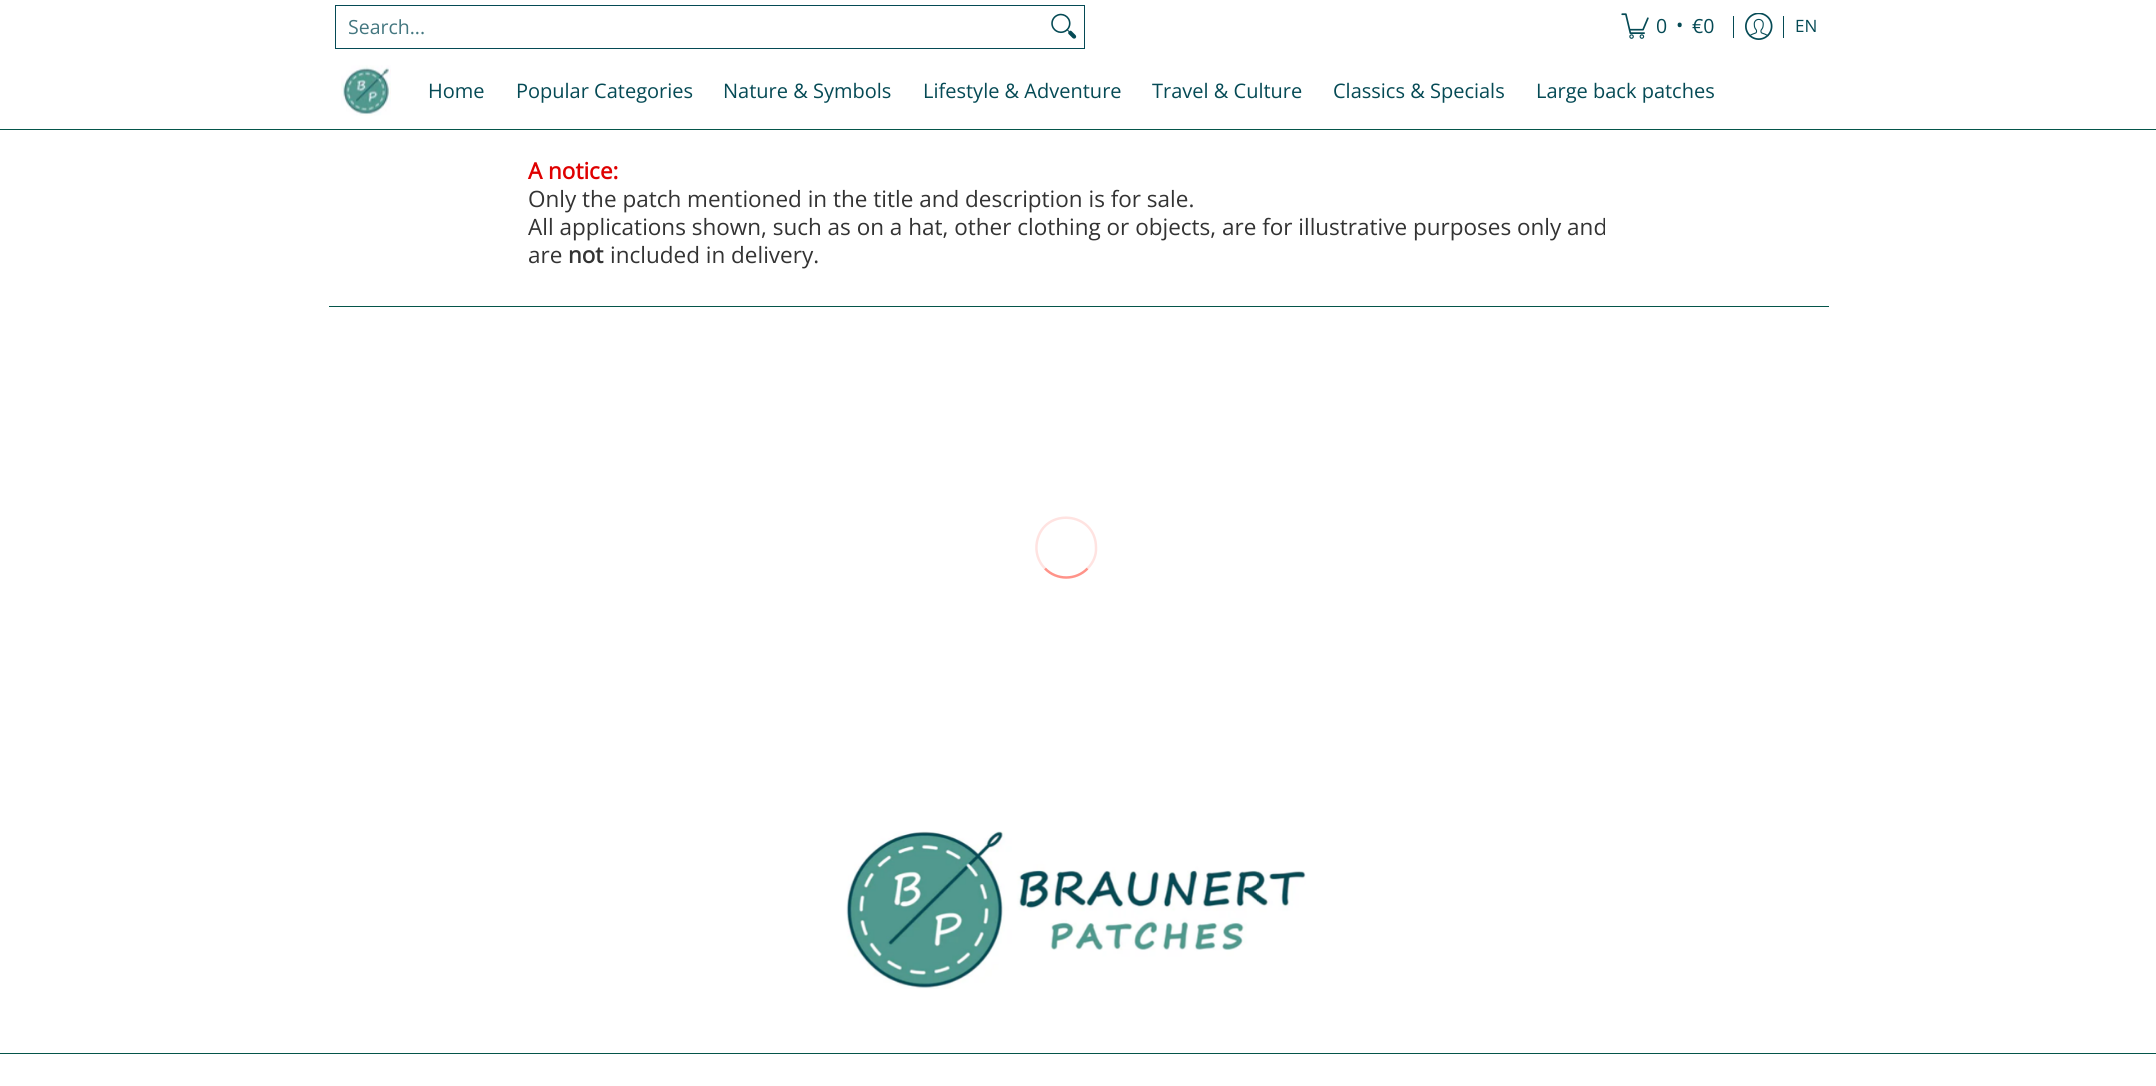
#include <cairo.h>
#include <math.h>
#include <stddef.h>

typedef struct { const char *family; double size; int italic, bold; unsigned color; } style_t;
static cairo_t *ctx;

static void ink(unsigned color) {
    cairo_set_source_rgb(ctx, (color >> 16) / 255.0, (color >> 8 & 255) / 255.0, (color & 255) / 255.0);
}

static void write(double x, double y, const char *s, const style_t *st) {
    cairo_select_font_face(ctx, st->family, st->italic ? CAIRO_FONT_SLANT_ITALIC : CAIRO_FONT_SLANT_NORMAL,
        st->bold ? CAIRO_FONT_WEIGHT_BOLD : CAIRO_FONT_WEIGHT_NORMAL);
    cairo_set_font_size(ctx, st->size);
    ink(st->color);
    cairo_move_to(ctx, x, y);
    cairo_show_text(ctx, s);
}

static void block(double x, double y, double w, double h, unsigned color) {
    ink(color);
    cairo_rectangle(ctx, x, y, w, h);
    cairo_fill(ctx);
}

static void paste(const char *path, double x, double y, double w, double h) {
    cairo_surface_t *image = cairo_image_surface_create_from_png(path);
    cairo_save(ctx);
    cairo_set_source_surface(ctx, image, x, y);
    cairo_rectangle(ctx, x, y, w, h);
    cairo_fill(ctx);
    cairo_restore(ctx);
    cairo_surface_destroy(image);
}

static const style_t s1 = {"Open Sans", 19.5, 0, 0, 0x447780};
static const style_t s2 = {"Open Sans", 19.5, 0, 0, 0x054a55};
static const style_t s3 = {"Open Sans", 17, 0, 0, 0x054a55};
static const style_t s4 = {"Open Sans", 20, 0, 0, 0x054a55};
static const style_t s5 = {"Open Sans", 22.5, 0, 1, 0xdf0000};
static const style_t s6 = {"Open Sans", 22.5, 0, 0, 0x333333};
static const style_t s7 = {"Open Sans", 22.5, 0, 1, 0x333333};

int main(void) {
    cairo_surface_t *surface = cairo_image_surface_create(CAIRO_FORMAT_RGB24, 2156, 1086);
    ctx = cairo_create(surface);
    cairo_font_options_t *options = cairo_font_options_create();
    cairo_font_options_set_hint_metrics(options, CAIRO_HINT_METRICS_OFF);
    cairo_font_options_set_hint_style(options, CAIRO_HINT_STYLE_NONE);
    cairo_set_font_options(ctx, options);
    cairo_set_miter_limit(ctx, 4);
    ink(0xffffff);
    cairo_paint(ctx);
    cairo_rectangle(ctx, 335.5, 5.5, 749, 43);
    ink(0x054a55);
    cairo_set_line_width(ctx, 1);
    cairo_stroke(ctx);
    write(348, 34, "Search...", &s1);
    paste("pic1.png", 1051, 13, 26, 26);
    paste("pic2.png", 1621, 13, 28, 26);
    write(1656, 33, "0", &s2);
    write(1676, 32, "•", &s2);
    write(1692, 33, "€0", &s2);
    block(1733, 16, 1, 22, 0x054a55);
    paste("pic3.png", 1745, 13, 28, 27);
    block(1783, 16, 1, 22, 0x054a55);
    write(1795, 32, "EN", &s3);
    block(0, 129, 2156, 1, 0x05554a);
    paste("pic4.png", 341, 65, 50, 51);
    write(428, 98, "Home", &s4);
    write(516, 98, "Popular Categories", &s4);
    write(723, 98, "Nature & Symbols", &s4);
    write(923, 98, "Lifestyle & Adventure", &s4);
    write(1152, 98, "Travel & Culture", &s4);
    write(1333, 98, "Classics & Specials", &s4);
    write(1536, 98, "Large back patches", &s4);
    block(329, 306, 1500, 1, 0x05554a);
    write(528, 179, "A notice:", &s5);
    write(528, 207, "Only the patch mentioned in the title and description is for sale.", &s6);
    write(528, 235, "All applications shown, such as on a hat, other clothing or objects, are for illustrative purposes only and", &s6);
    write(528, 263, "are", &s6);
    write(568, 263, "not", &s7);
    write(610, 263, "included in delivery.", &s6);
    cairo_new_path(ctx);
    cairo_move_to(ctx, 1087.5, 568.5);
    cairo_curve_to(ctx, 1076, 580.5, 1056.5, 580.5, 1045, 568.5);
    ink(0xff9389);
    cairo_set_line_width(ctx, 2.5);
    cairo_stroke(ctx);
    cairo_new_path(ctx);
    cairo_move_to(ctx, 1045, 568.5);
    cairo_curve_to(ctx, 1038, 561.5, 1035, 551.5, 1037, 541.5);
    cairo_curve_to(ctx, 1044, 506.5, 1096, 511.5, 1096, 547.5);
    cairo_curve_to(ctx, 1096.5, 555.5, 1093, 563, 1087.5, 568.5);
    cairo_set_source_rgba(ctx, 1, 0.576, 0.537, 0.25);
    cairo_stroke(ctx);
    block(0, 1053, 2156, 1, 0x05554a);
    paste("pic5.png", 846, 831, 460, 158);
    cairo_surface_write_to_png(surface, "screenshot.png");
    cairo_font_options_destroy(options);
    cairo_destroy(ctx);
    cairo_surface_destroy(surface);
    return 0;
}
